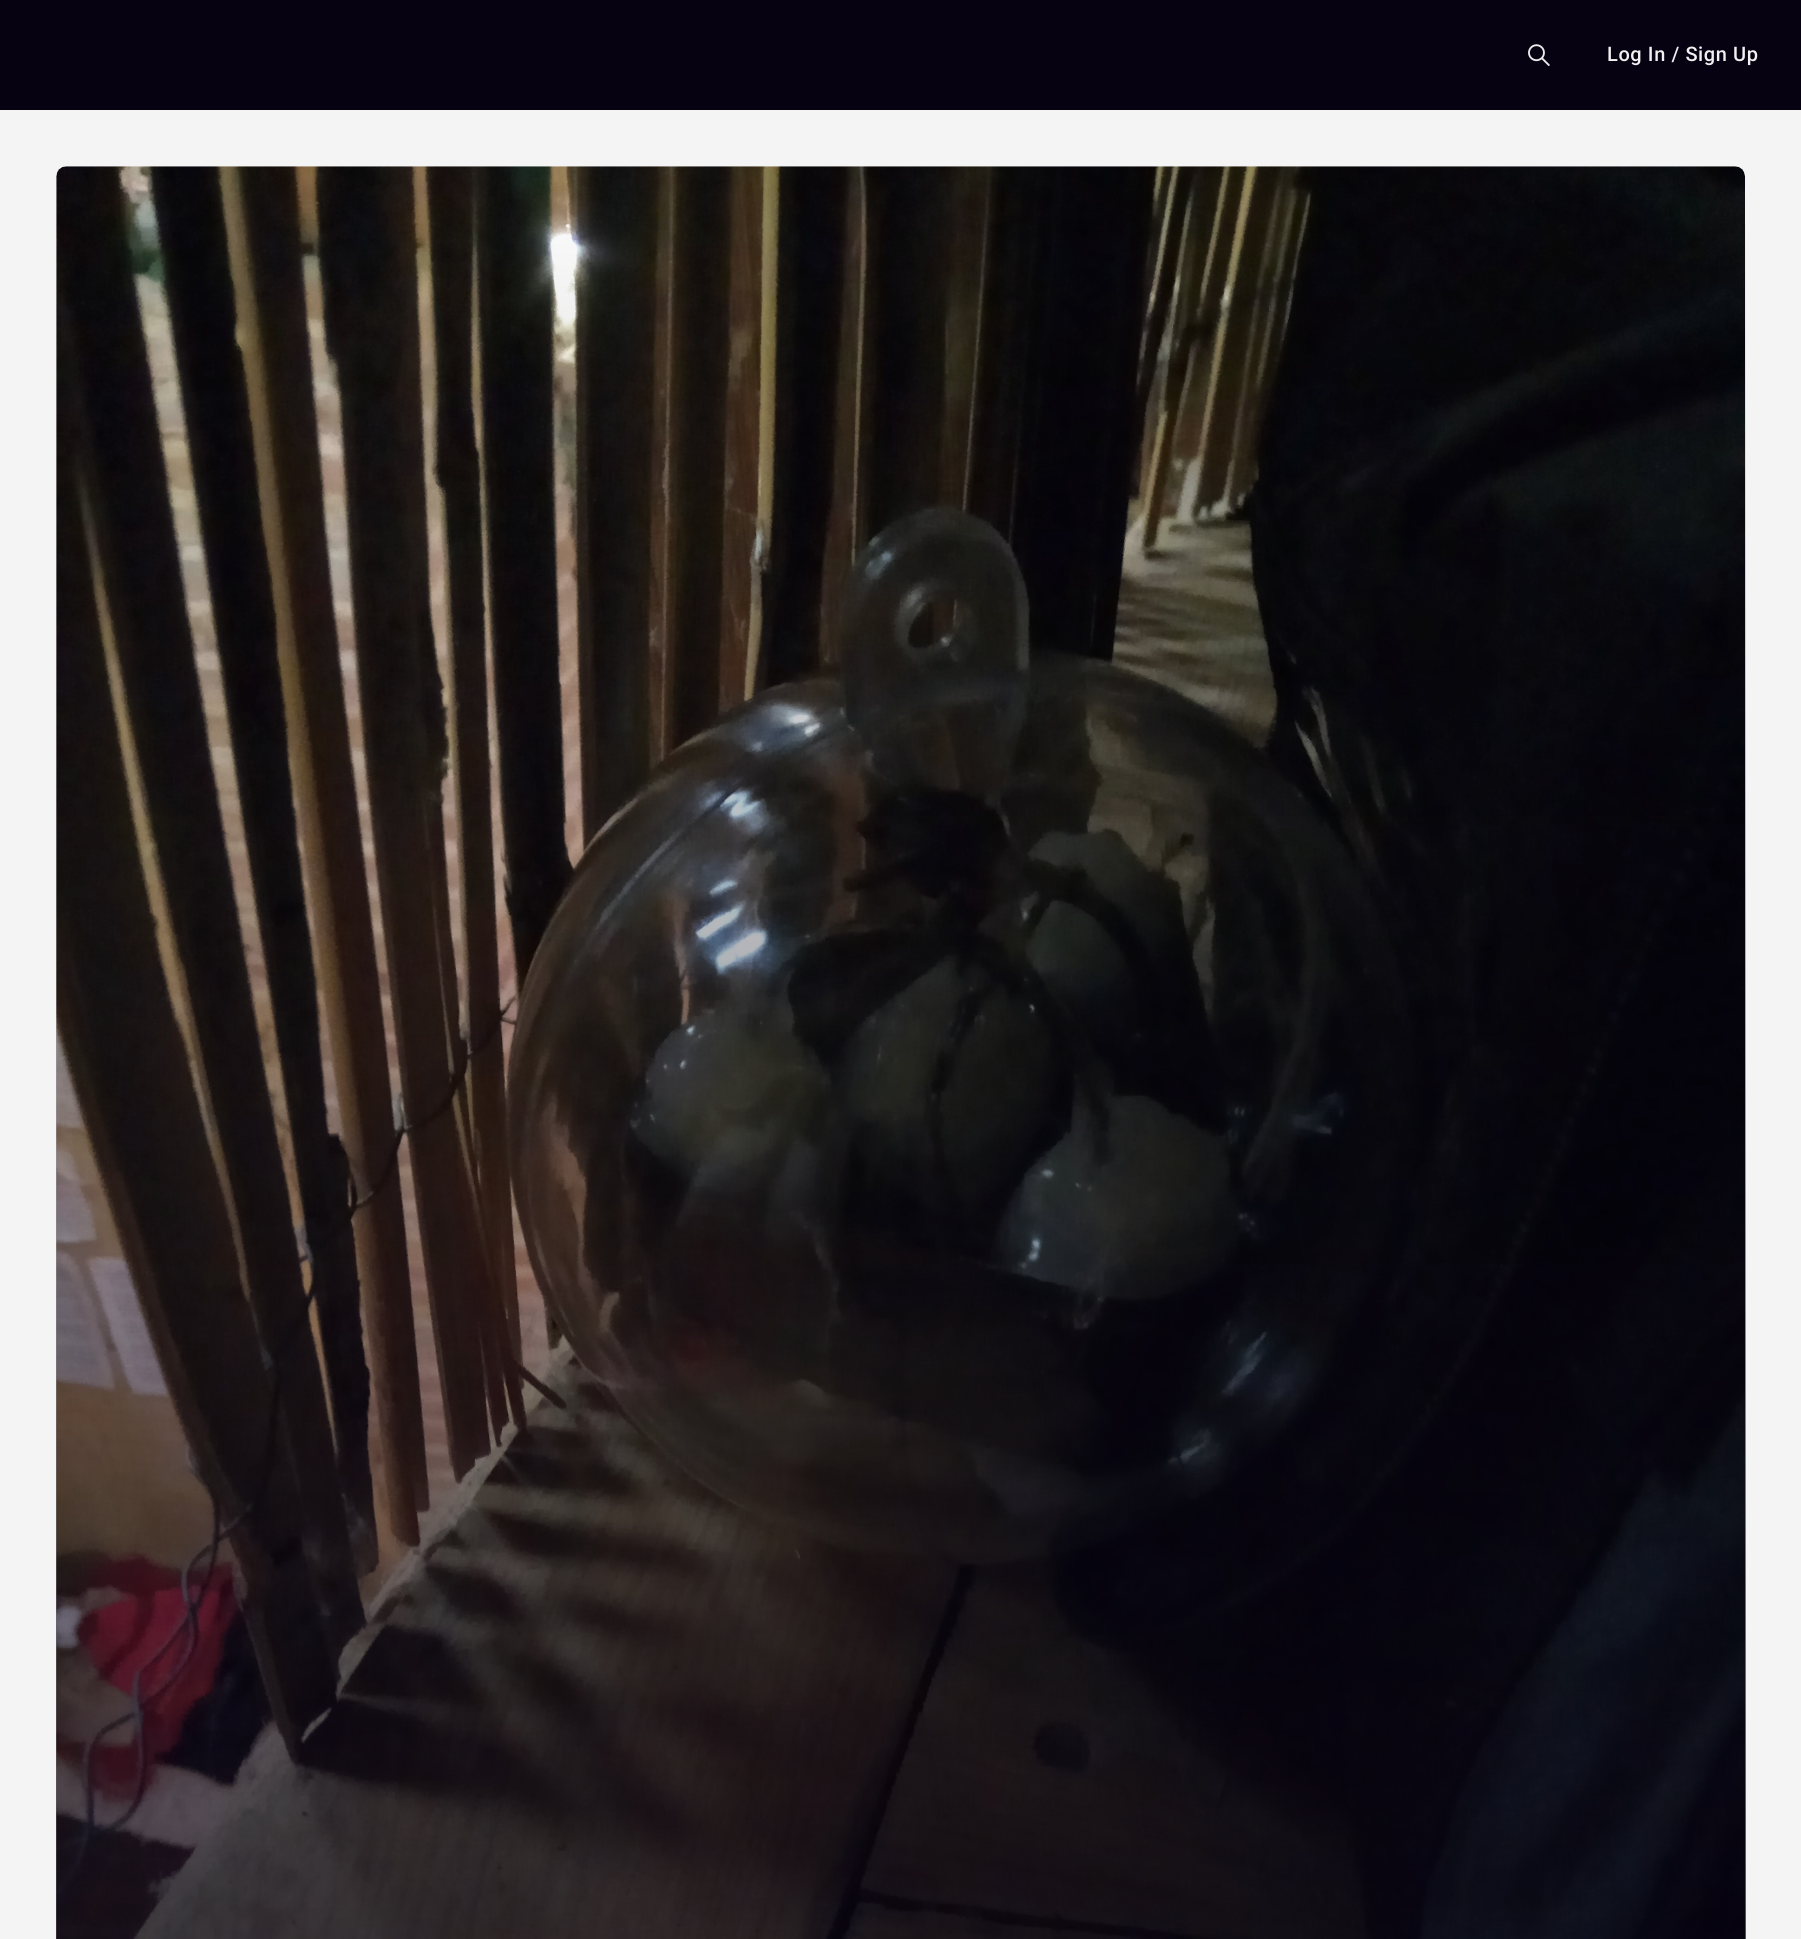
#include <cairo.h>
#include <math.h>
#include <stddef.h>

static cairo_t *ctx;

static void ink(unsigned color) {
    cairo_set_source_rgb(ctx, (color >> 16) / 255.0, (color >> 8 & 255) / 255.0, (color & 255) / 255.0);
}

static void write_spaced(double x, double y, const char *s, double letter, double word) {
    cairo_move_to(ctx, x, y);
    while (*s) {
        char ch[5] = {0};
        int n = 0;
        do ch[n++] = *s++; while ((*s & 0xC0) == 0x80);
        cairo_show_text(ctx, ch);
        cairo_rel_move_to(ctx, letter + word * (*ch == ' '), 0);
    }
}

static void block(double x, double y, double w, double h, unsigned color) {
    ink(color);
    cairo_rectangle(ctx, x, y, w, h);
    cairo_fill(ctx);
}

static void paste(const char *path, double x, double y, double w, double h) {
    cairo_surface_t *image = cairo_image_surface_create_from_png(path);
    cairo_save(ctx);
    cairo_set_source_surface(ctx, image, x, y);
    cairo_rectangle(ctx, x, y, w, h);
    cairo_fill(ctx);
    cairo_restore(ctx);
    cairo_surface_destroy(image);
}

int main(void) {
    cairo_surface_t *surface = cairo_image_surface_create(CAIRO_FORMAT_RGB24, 1801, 1939);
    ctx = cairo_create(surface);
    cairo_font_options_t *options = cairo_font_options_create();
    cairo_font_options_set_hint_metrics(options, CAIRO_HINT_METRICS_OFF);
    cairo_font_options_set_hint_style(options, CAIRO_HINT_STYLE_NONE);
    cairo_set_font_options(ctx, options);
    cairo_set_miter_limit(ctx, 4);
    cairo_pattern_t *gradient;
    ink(0xf4f4f4);
    cairo_paint(ctx);
    block(0, 0, 1801, 110, 0x060212);
    paste("pic1.png", 1528, 44, 22, 22);
    cairo_select_font_face(ctx, "Roboto Medium", CAIRO_FONT_SLANT_NORMAL, CAIRO_FONT_WEIGHT_NORMAL);
    cairo_set_font_size(ctx, 20);
    ink(0xf1f1f1);
    write_spaced(1607, 61, "Log In / Sign Up", 0.6, 0);
    paste("pic2.png", 56, 166, 1689, 1773);
    gradient = cairo_pattern_create_linear(901, 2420, 901, 166);
    cairo_pattern_add_color_stop_rgba(gradient, 0, 0.024, 0.008, 0.071, 0.85);
    cairo_pattern_add_color_stop_rgba(gradient, 1, 0.024, 0.008, 0.071, 0);
    cairo_set_source(ctx, gradient);
    cairo_pattern_destroy(gradient);
    cairo_rectangle(ctx, 56, 223, 1690, 1716);
    cairo_fill(ctx);
    cairo_surface_write_to_png(surface, "screenshot.png");
    cairo_font_options_destroy(options);
    cairo_destroy(ctx);
    cairo_surface_destroy(surface);
    return 0;
}
